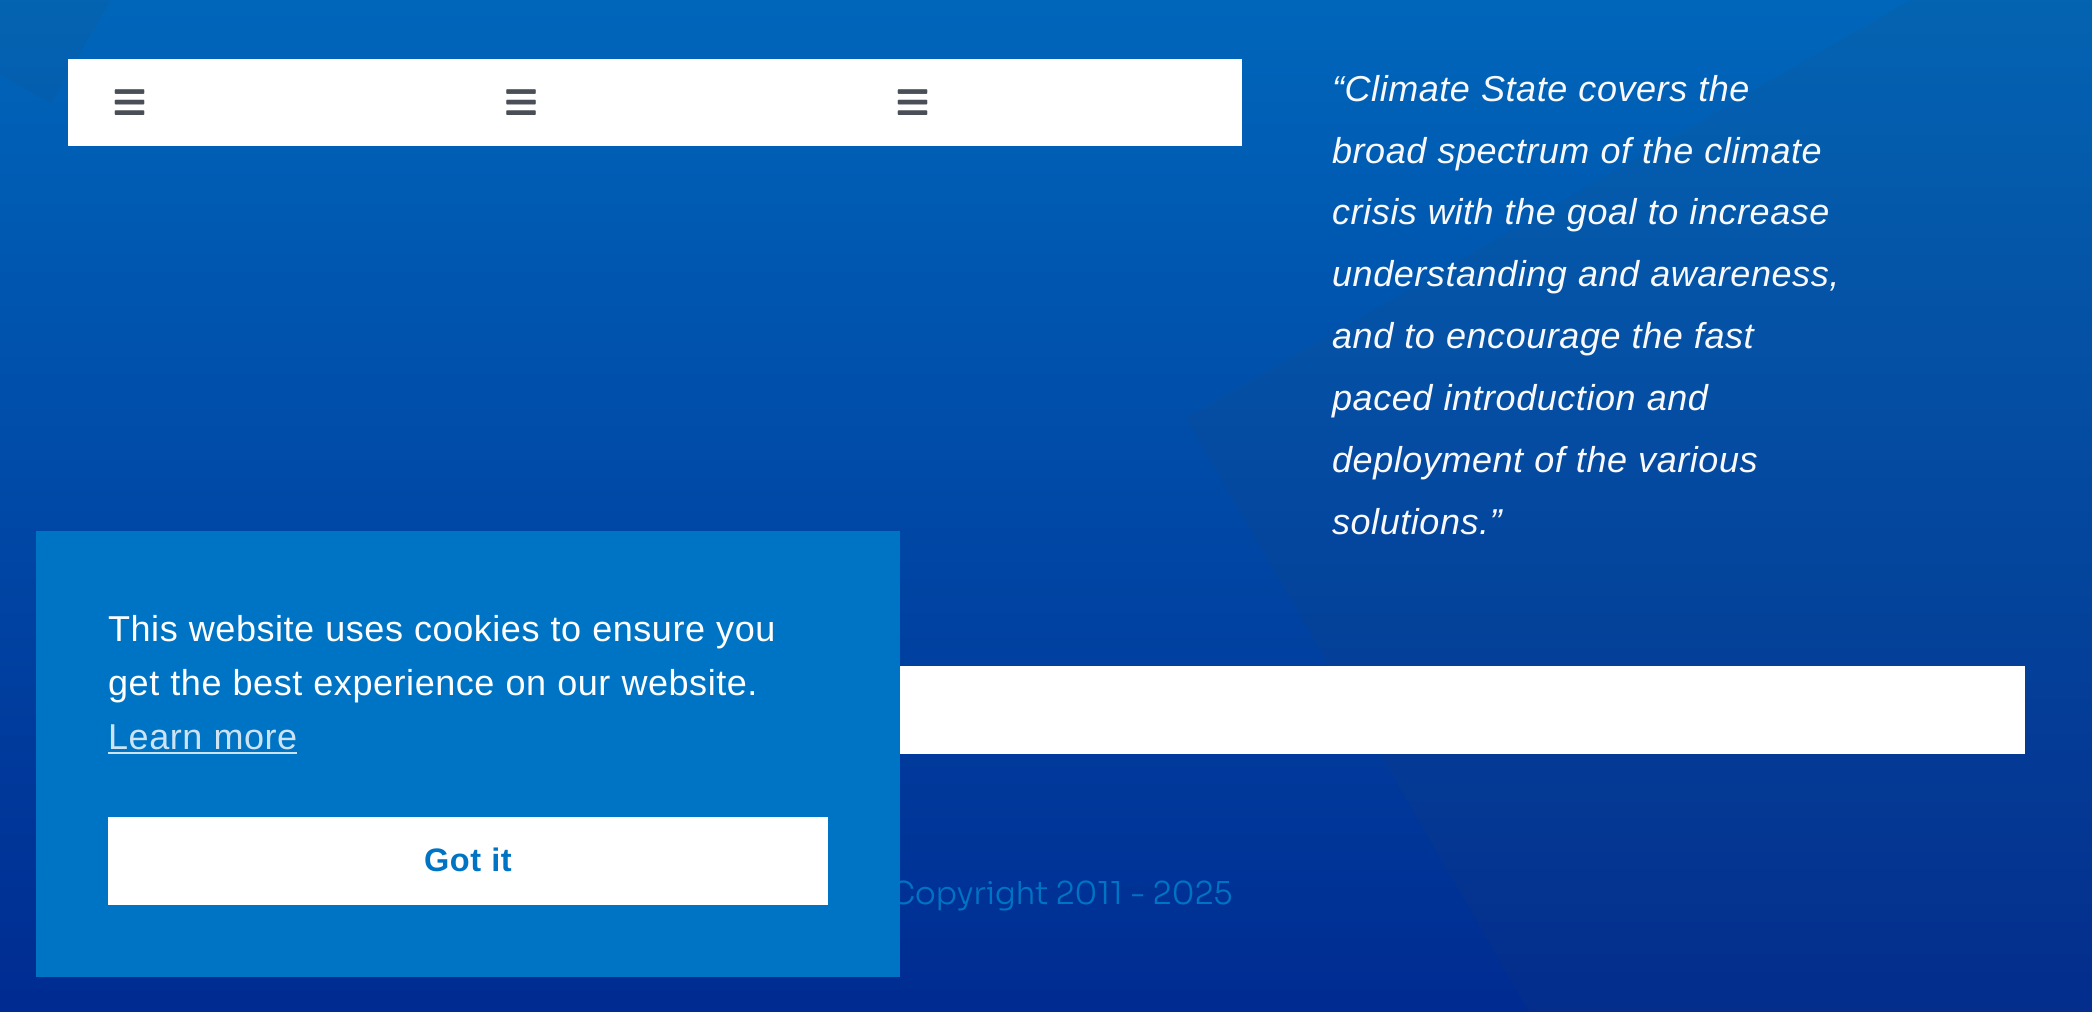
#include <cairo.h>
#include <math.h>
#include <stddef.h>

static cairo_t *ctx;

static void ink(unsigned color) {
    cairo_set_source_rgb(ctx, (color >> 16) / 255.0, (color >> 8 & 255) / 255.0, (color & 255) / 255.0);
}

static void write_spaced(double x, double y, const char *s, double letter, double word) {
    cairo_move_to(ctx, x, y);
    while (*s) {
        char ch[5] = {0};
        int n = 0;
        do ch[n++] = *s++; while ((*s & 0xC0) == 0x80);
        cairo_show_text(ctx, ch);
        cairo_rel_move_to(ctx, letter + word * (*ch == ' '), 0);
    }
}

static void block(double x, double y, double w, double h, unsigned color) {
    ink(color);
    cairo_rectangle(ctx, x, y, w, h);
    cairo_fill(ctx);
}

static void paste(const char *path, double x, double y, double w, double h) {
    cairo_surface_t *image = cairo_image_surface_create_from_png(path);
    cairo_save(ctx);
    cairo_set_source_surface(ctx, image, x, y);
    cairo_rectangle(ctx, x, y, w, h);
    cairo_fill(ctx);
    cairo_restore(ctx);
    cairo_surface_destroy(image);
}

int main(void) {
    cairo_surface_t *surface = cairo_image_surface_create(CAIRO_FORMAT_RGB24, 2092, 1012);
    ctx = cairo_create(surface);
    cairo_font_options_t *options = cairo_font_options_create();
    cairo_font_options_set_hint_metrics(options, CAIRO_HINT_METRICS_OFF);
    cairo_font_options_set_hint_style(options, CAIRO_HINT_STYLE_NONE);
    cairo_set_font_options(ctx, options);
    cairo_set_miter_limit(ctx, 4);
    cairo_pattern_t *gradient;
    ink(0xffffff);
    cairo_paint(ctx);
    gradient = cairo_pattern_create_linear(1046, -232, 1046, 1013);
    cairo_pattern_add_color_stop_rgba(gradient, 0, 0, 0.455, 0.769, 1);
    cairo_pattern_add_color_stop_rgba(gradient, 1, 0, 0.169, 0.569, 1);
    cairo_set_source(ctx, gradient);
    cairo_pattern_destroy(gradient);
    cairo_rectangle(ctx, 0, 0, 2092, 1012);
    cairo_fill(ctx);
    cairo_set_source_rgba(ctx, 0.243, 0.275, 0.318, 0.08);
    cairo_set_fill_rule(ctx, CAIRO_FILL_RULE_EVEN_ODD);
    cairo_new_path(ctx);
    cairo_move_to(ctx, -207, -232);
    cairo_line_to(ctx, -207, -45);
    cairo_line_to(ctx, 51, 104);
    cairo_line_to(ctx, 245, -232);
    cairo_close_path(ctx);
    cairo_move_to(ctx, 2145, -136);
    cairo_line_to(ctx, 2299, 130);
    cairo_line_to(ctx, 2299, 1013);
    cairo_line_to(ctx, 1530, 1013);
    cairo_line_to(ctx, 1186, 418);
    cairo_close_path(ctx);
    cairo_move_to(ctx, 641, 886);
    cairo_line_to(ctx, 730, 910);
    cairo_line_to(ctx, 754, 821);
    cairo_line_to(ctx, 665, 797);
    cairo_close_path(ctx);
    cairo_fill(ctx);
    block(36, 531, 864, 446, 0x0074c4);
    cairo_select_font_face(ctx, "Liberation Sans", CAIRO_FONT_SLANT_NORMAL, CAIRO_FONT_WEIGHT_NORMAL);
    cairo_set_font_size(ctx, 36);
    ink(0xffffff);
    write_spaced(108, 641, "This website uses cookies to ensure you", 0.55, 0);
    write_spaced(108, 695, "get the best experience on our website.", 0.55, 0);
    ink(0xcce3f3);
    write_spaced(108, 749, "Learn more", 0.55, 0);
    block(108, 752, 189, 2, 0xcce3f3);
    block(108, 817, 720, 88, 0xffffff);
    cairo_select_font_face(ctx, "Liberation Sans", CAIRO_FONT_SLANT_NORMAL, CAIRO_FONT_WEIGHT_BOLD);
    cairo_set_font_size(ctx, 32.5);
    ink(0x0074c4);
    write_spaced(424, 871, "Got it", 0.55, 0);
    block(68, 59, 1174, 87, 0xffffff);
    paste("pic1.png", 114, 89, 31, 26);
    cairo_select_font_face(ctx, "Liberation Sans", CAIRO_FONT_SLANT_ITALIC, CAIRO_FONT_WEIGHT_NORMAL);
    cairo_set_font_size(ctx, 36);
    ink(0xf9f9fb);
    write_spaced(1332, 101, "“Climate State covers the", 0.55, 0);
    write_spaced(1332, 163, "broad spectrum of the climate", 0.55, 0);
    write_spaced(1332, 224, "crisis with the goal to increase", 0.55, 0);
    write_spaced(1332, 286, "understanding and awareness,", 0.55, 0);
    write_spaced(1332, 348, "and to encourage the fast", 0.55, 0);
    write_spaced(1332, 410, "paced introduction and", 0.55, 0);
    write_spaced(1332, 472, "deployment of the various", 0.55, 0);
    write_spaced(1332, 534, "solutions.”", 0.55, 0);
    paste("pic2.png", 506, 89, 30, 26);
    paste("pic1.png", 897, 89, 31, 26);
    block(900, 666, 1125, 88, 0xffffff);
    cairo_select_font_face(ctx, "Sora Light", CAIRO_FONT_SLANT_NORMAL, CAIRO_FONT_WEIGHT_NORMAL);
    cairo_set_font_size(ctx, 31.5);
    ink(0x0074c4);
    write_spaced(890, 904, "Copyright 2011 - 2025", -0.3, 0);
    cairo_surface_write_to_png(surface, "screenshot.png");
    cairo_font_options_destroy(options);
    cairo_destroy(ctx);
    cairo_surface_destroy(surface);
    return 0;
}
